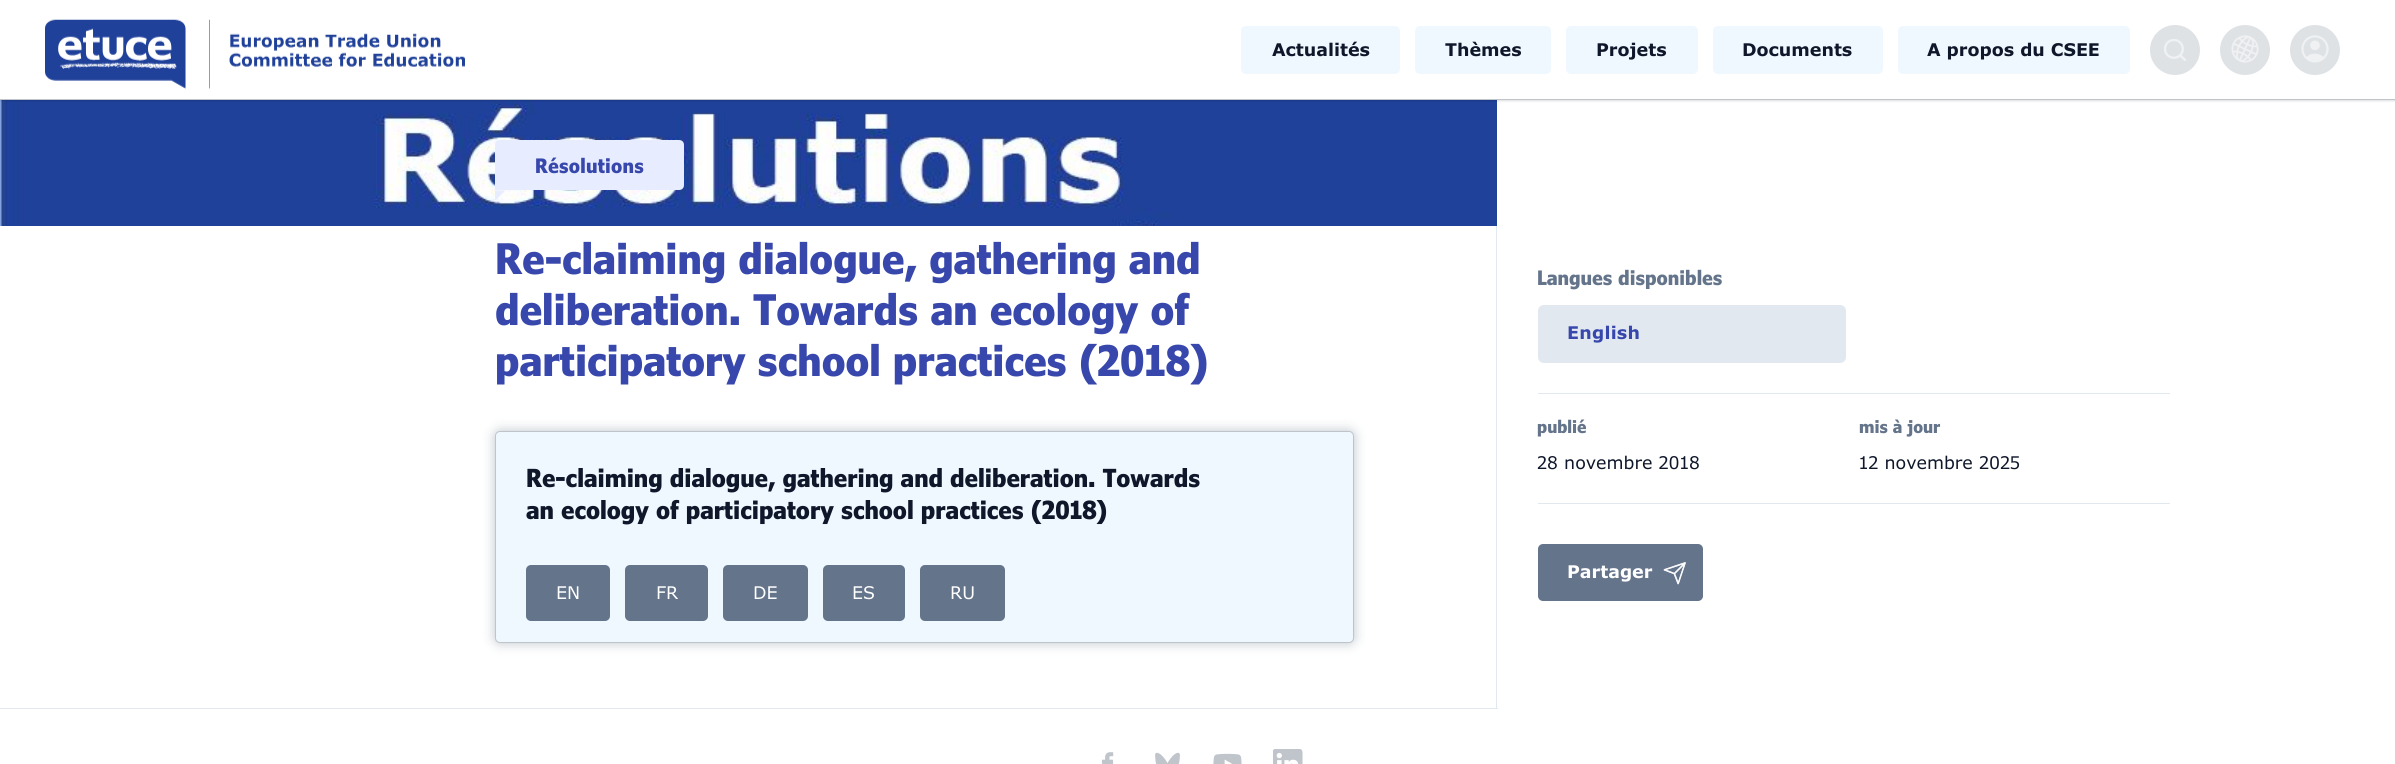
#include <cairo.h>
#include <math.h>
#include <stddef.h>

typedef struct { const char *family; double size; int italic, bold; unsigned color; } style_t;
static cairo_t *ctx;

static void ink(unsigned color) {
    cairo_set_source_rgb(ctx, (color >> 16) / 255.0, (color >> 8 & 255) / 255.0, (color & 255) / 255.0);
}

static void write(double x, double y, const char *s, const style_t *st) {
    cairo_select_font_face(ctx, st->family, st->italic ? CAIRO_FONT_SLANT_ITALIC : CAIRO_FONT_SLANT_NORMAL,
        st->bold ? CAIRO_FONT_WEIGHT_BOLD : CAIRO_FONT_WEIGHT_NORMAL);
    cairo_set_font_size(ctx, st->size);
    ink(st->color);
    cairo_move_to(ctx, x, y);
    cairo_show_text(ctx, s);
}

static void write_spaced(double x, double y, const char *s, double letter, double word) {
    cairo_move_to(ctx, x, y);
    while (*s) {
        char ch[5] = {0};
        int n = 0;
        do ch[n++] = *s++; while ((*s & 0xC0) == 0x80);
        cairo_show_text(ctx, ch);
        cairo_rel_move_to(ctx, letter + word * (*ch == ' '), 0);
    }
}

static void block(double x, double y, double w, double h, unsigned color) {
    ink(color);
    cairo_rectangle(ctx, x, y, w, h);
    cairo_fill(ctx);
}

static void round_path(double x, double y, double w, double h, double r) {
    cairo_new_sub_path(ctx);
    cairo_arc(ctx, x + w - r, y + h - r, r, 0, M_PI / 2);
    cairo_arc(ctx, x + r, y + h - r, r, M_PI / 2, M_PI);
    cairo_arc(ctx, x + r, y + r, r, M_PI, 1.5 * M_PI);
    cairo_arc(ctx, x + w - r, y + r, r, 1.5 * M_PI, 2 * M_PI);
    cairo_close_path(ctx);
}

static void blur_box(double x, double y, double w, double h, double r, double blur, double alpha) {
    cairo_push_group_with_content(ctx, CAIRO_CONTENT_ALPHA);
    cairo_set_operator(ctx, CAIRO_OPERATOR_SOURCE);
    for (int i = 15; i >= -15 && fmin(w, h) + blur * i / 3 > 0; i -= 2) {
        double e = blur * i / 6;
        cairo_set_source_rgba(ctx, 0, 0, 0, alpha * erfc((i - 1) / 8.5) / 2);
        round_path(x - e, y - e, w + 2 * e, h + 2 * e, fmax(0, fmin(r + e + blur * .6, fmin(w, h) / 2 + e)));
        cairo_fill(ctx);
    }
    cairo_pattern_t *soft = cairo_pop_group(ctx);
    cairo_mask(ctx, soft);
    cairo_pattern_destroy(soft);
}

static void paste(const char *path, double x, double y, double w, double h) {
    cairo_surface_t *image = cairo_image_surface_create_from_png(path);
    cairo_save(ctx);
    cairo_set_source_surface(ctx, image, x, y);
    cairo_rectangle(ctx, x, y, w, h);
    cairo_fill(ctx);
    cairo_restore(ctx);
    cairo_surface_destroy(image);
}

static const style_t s1 = {"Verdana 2", 17.5, 0, 1, 0x0f172a};
static const style_t s2 = {"Verdana", 42.3, 0, 1, 0x3747ac};
static const style_t s3 = {"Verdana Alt", 42.3, 0, 1, 0x3747ac};
static const style_t s4 = {"Verdana", 20, 0, 1, 0x64748b};
static const style_t s5 = {"Verdana", 17.5, 0, 1, 0x64748b};
static const style_t s6 = {"Verdana Alt", 17.5, 0, 0, 0x0f172a};
static const style_t s7 = {"Verdana 2", 17.5, 0, 1, 0xffffff};
static const style_t s8 = {"Verdana", 25, 0, 1, 0x0f172a};
static const style_t s9 = {"Verdana Alt", 25, 0, 1, 0x0f172a};
static const style_t s10 = {"Verdana", 17.5, 0, 0, 0xffffff};

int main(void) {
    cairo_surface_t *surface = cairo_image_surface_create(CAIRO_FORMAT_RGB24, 2395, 764);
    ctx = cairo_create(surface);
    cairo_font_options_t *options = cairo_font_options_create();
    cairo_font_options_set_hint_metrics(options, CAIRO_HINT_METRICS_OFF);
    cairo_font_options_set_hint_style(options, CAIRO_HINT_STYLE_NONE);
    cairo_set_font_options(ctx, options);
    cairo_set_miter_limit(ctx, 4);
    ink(0xffffff);
    cairo_paint(ctx);
    paste("pic5.png", 0, 100, 1497, 126);
    ink(0x000000);
    blur_box(0, 1, 2395, 100, 0, 1, 0.06);
    blur_box(0, 1, 2395, 100, 0, 1, 0.08);
    block(0, 0, 2395, 99, 0xffffff);
    block(0, 99, 2395, 1, 0xbfc5cb);
    paste("pic1.png", 45, 19, 420, 70);
    ink(0xf0f8ff);
    round_path(1241, 26, 159, 48, 5);
    cairo_fill(ctx);
    write(1272, 56, "Actualités", &s1);
    ink(0xf0f8ff);
    round_path(1415, 26, 136, 48, 5);
    cairo_fill(ctx);
    write(1445, 56, "Thèmes", &s1);
    ink(0xf0f8ff);
    round_path(1566, 26, 132, 48, 5);
    cairo_fill(ctx);
    write(1596, 56, "Projets", &s1);
    ink(0xf0f8ff);
    round_path(1713, 26, 170, 48, 5);
    cairo_fill(ctx);
    write(1742, 56, "Documents", &s1);
    ink(0xf0f8ff);
    round_path(1898, 26, 232, 48, 5);
    cairo_fill(ctx);
    write(1927, 56, "A propos du CSEE", &s1);
    ink(0xdfe2e5);
    cairo_new_path(ctx);
    cairo_arc(ctx, 2175, 50, 25, 0, 2 * M_PI);
    cairo_fill(ctx);
    paste("pic2.png", 2164, 39, 22, 22);
    cairo_arc(ctx, 2245, 50, 25, 0, 2 * M_PI);
    cairo_fill(ctx);
    paste("pic3.png", 2231, 35, 28, 28);
    cairo_arc(ctx, 2315, 50, 25, 0, 2 * M_PI);
    cairo_fill(ctx);
    paste("pic4.png", 2301, 35, 28, 28);
    ink(0xe7ecff);
    cairo_new_path(ctx);
    cairo_move_to(ctx, 500, 140);
    cairo_line_to(ctx, 679, 140);
    cairo_curve_to(ctx, 682, 140, 684, 142, 684, 145);
    cairo_line_to(ctx, 684, 185);
    cairo_curve_to(ctx, 684, 188, 682, 190, 679, 190);
    cairo_line_to(ctx, 495, 190);
    cairo_line_to(ctx, 495, 145);
    cairo_curve_to(ctx, 495, 142, 497, 140, 500, 140);
    cairo_close_path(ctx);
    cairo_fill(ctx);
    cairo_select_font_face(ctx, "Verdana", CAIRO_FONT_SLANT_NORMAL, CAIRO_FONT_WEIGHT_BOLD);
    cairo_set_font_size(ctx, 20);
    ink(0x3747ac);
    write_spaced(535, 173, "Résolutions", 0.25, 0);
    ink(0xe7ecff);
    cairo_new_path(ctx);
    cairo_move_to(ctx, 495, 190.5);
    cairo_line_to(ctx, 505, 190.5);
    cairo_line_to(ctx, 496, 200);
    cairo_line_to(ctx, 495, 200);
    cairo_close_path(ctx);
    cairo_fill(ctx);
    write(495, 274, "Re-claiming dialogue, gathering and", &s2);
    write(495, 325, "deliberation. Towards an ecology of", &s2);
    write(495, 376, "participatory school practices (2018)", &s3);
    block(1538, 393, 632, 1, 0xe2e8f0);
    write(1537, 285, "Langues disponibles", &s4);
    ink(0xe2e8f0);
    round_path(1538, 305, 308, 58, 6);
    cairo_fill(ctx);
    cairo_select_font_face(ctx, "Verdana 2", CAIRO_FONT_SLANT_NORMAL, CAIRO_FONT_WEIGHT_BOLD);
    cairo_set_font_size(ctx, 17.5);
    ink(0x3747ac);
    write_spaced(1567, 339, "English", 0.25, 0);
    block(1538, 503, 632, 1, 0xe2e8f0);
    write(1537, 433, "publié", &s5);
    write(1537, 469, "28 novembre 2018", &s6);
    write(1859, 433, "mis à jour", &s5);
    write(1859, 469, "12 novembre 2025", &s6);
    ink(0x64748b);
    round_path(1538, 544, 165, 57, 5);
    cairo_fill(ctx);
    paste("pic6.png", 1663, 562, 23, 23);
    write(1567, 578, "Partager", &s7);
    block(1496, 226, 1, 483, 0xe2e8f0);
    block(0, 708, 1498, 1, 0xe2e8f0);
    ink(0xbfc5cb);
    blur_box(495, 431, 859, 212, 5, 6, 1);
    ink(0xf0f8ff);
    round_path(495.5, 431.5, 858, 211, 4.5);
    cairo_fill_preserve(ctx);
    ink(0xbfc5cb);
    cairo_set_line_width(ctx, 1);
    cairo_stroke(ctx);
    write(526, 487, "Re-claiming dialogue, gathering and deliberation. Towards", &s8);
    write(526, 519, "an ecology of participatory school practices (2018)", &s9);
    ink(0x64748b);
    round_path(526, 565, 84, 56, 5);
    cairo_fill(ctx);
    write(556, 599, "EN", &s10);
    ink(0x64748b);
    round_path(625, 565, 83, 56, 5);
    cairo_fill(ctx);
    write(656, 599, "FR", &s10);
    ink(0x64748b);
    round_path(723, 565, 85, 56, 5);
    cairo_fill(ctx);
    write(753, 599, "DE", &s10);
    ink(0x64748b);
    round_path(823, 565, 82, 56, 5);
    cairo_fill(ctx);
    write(852, 599, "ES", &s10);
    ink(0x64748b);
    round_path(920, 565, 85, 56, 5);
    cairo_fill(ctx);
    write(950, 599, "RU", &s10);
    paste("pic7.png", 1101, 752, 13, 12);
    paste("pic8.png", 1155, 752, 25, 12);
    paste("pic9.png", 1213, 753, 29, 11);
    paste("pic10.png", 1273, 749, 30, 15);
    cairo_surface_write_to_png(surface, "screenshot.png");
    cairo_font_options_destroy(options);
    cairo_destroy(ctx);
    cairo_surface_destroy(surface);
    return 0;
}
